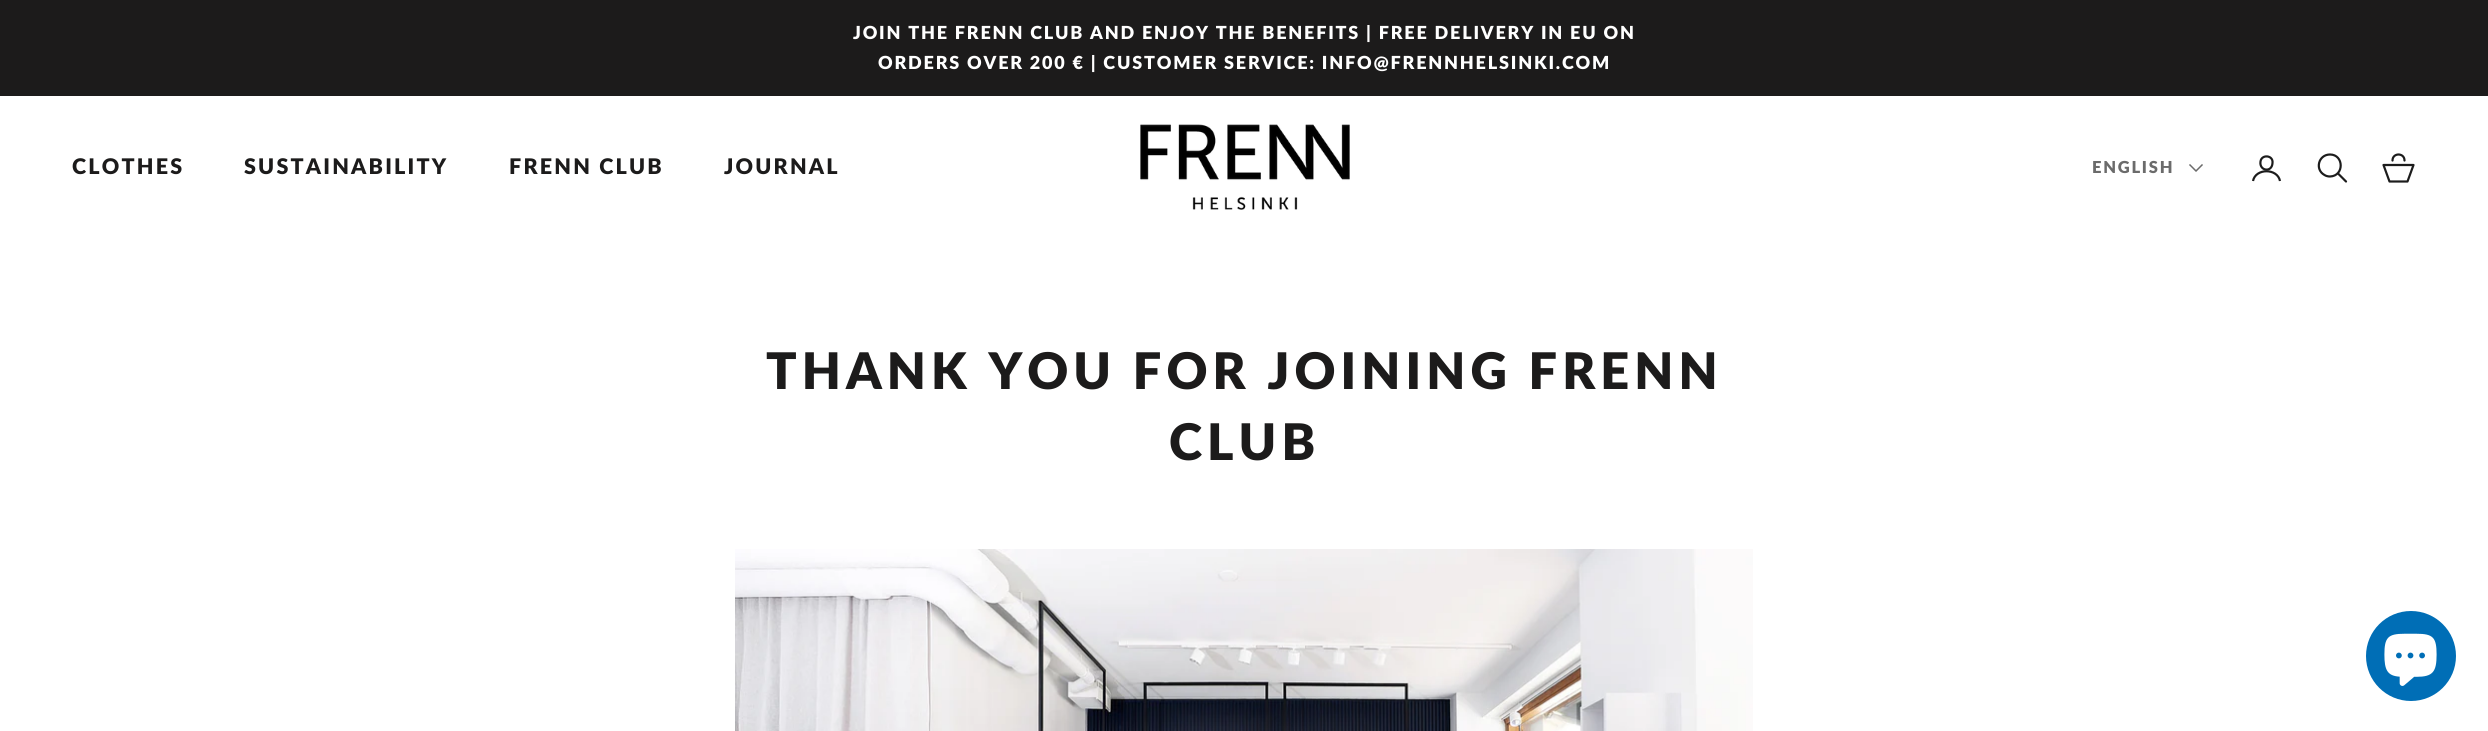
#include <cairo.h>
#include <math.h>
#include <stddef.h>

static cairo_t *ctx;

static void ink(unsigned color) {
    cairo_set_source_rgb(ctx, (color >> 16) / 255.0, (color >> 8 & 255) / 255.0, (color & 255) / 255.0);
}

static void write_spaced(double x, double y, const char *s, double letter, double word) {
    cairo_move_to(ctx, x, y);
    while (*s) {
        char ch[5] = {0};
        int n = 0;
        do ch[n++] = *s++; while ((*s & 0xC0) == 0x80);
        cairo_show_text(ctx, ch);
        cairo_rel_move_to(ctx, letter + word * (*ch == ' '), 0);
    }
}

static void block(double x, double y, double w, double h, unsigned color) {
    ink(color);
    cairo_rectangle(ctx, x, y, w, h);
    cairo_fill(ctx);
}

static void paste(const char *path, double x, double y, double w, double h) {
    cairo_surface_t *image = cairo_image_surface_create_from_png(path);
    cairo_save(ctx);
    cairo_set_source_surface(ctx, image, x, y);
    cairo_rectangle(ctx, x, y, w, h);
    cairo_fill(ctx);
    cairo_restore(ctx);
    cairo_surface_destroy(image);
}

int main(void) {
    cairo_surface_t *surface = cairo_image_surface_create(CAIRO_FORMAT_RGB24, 2488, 731);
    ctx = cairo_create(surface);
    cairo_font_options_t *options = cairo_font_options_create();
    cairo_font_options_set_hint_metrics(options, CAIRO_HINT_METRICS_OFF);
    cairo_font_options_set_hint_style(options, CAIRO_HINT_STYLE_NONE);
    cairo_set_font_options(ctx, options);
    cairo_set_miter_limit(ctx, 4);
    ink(0xffffff);
    cairo_paint(ctx);
    block(0, 0, 2488, 96, 0x1c1b1b);
    cairo_select_font_face(ctx, "Lato ExtraBold", CAIRO_FONT_SLANT_NORMAL, CAIRO_FONT_WEIGHT_NORMAL);
    cairo_set_font_size(ctx, 18);
    ink(0xffffff);
    write_spaced(853, 39, "JOIN THE FRENN CLUB AND ENJOY THE BENEFITS | FREE DELIVERY IN EU ON", 1.8, 0);
    write_spaced(878, 69, "ORDERS OVER 200 € | CUSTOMER SERVICE: INFO@FRENNHELSINKI.COM", 1.8, 0);
    cairo_set_font_size(ctx, 21.5);
    ink(0x1c1b1b);
    write_spaced(72, 174, "CLOTHES", 2.2, 0);
    write_spaced(244, 174, "SUSTAINABILITY", 2.2, 0);
    write_spaced(509, 174, "FRENN CLUB", 2.2, 0);
    write_spaced(724, 174, "JOURNAL", 2.2, 0);
    paste("pic1.png", 1140, 124, 210, 86);
    cairo_set_font_size(ctx, 16.5);
    ink(0x6b6b6b);
    write_spaced(2092, 173, "ENGLISH", 1.75, 0);
    cairo_new_path(ctx);
    cairo_move_to(ctx, 2190, 165);
    cairo_line_to(ctx, 2196, 171);
    cairo_line_to(ctx, 2202, 165);
    cairo_set_line_width(ctx, 1.5);
    cairo_set_line_cap(ctx, CAIRO_LINE_CAP_SQUARE);
    cairo_stroke(ctx);
    cairo_new_path(ctx);
    cairo_move_to(ctx, 2272.5, 163);
    cairo_curve_to(ctx, 2272, 173, 2259, 171, 2260.5, 161.5);
    cairo_curve_to(ctx, 2261.5, 154, 2273.5, 155, 2272.5, 163);
    cairo_close_path(ctx);
    ink(0x1c1c1c);
    cairo_set_line_width(ctx, 2.2);
    cairo_set_line_cap(ctx, CAIRO_LINE_CAP_ROUND);
    cairo_set_line_join(ctx, CAIRO_LINE_JOIN_ROUND);
    cairo_stroke(ctx);
    cairo_new_path(ctx);
    cairo_move_to(ctx, 2253, 181);
    cairo_curve_to(ctx, 2255.5, 168, 2277.5, 168, 2280, 181);
    cairo_set_line_cap(ctx, CAIRO_LINE_CAP_BUTT);
    cairo_set_line_join(ctx, CAIRO_LINE_JOIN_MITER);
    cairo_stroke(ctx);
    cairo_new_path(ctx);
    cairo_move_to(ctx, 2330, 154.5);
    cairo_curve_to(ctx, 2318.5, 154.5, 2314.5, 169.5, 2324.5, 175);
    cairo_curve_to(ctx, 2326, 176, 2328, 176.5, 2330, 176.5);
    cairo_curve_to(ctx, 2344.5, 176, 2344, 154.5, 2330, 154.5);
    cairo_close_path(ctx);
    cairo_stroke(ctx);
    cairo_new_path(ctx);
    cairo_move_to(ctx, 2338.5, 174);
    cairo_line_to(ctx, 2346, 181.5);
    cairo_set_line_cap(ctx, CAIRO_LINE_CAP_ROUND);
    cairo_stroke(ctx);
    cairo_new_path(ctx);
    cairo_move_to(ctx, 2383.5, 165);
    cairo_line_to(ctx, 2413.5, 165);
    cairo_line_to(ctx, 2407.5, 181.5);
    cairo_line_to(ctx, 2389.5, 181.5);
    cairo_close_path(ctx);
    cairo_move_to(ctx, 2404.5, 160.5);
    cairo_curve_to(ctx, 2404.5, 152.5, 2392.5, 152.5, 2392.5, 160.5);
    cairo_set_line_join(ctx, CAIRO_LINE_JOIN_ROUND);
    cairo_stroke(ctx);
    cairo_set_font_size(ctx, 50.4);
    ink(0x1c1b1b);
    write_spaced(766, 389, "THANK YOU FOR JOINING FRENN", 5.05, 0);
    write_spaced(1169, 460, "CLUB", 5.05, 0);
    paste("pic2.png", 735, 549, 1018, 182);
    ink(0x006eb6);
    cairo_arc(ctx, 2411, 656, 45, 0, 2 * M_PI);
    cairo_fill(ctx);
    paste("pic3.png", 2384, 633, 53, 53);
    cairo_surface_write_to_png(surface, "screenshot.png");
    cairo_font_options_destroy(options);
    cairo_destroy(ctx);
    cairo_surface_destroy(surface);
    return 0;
}
